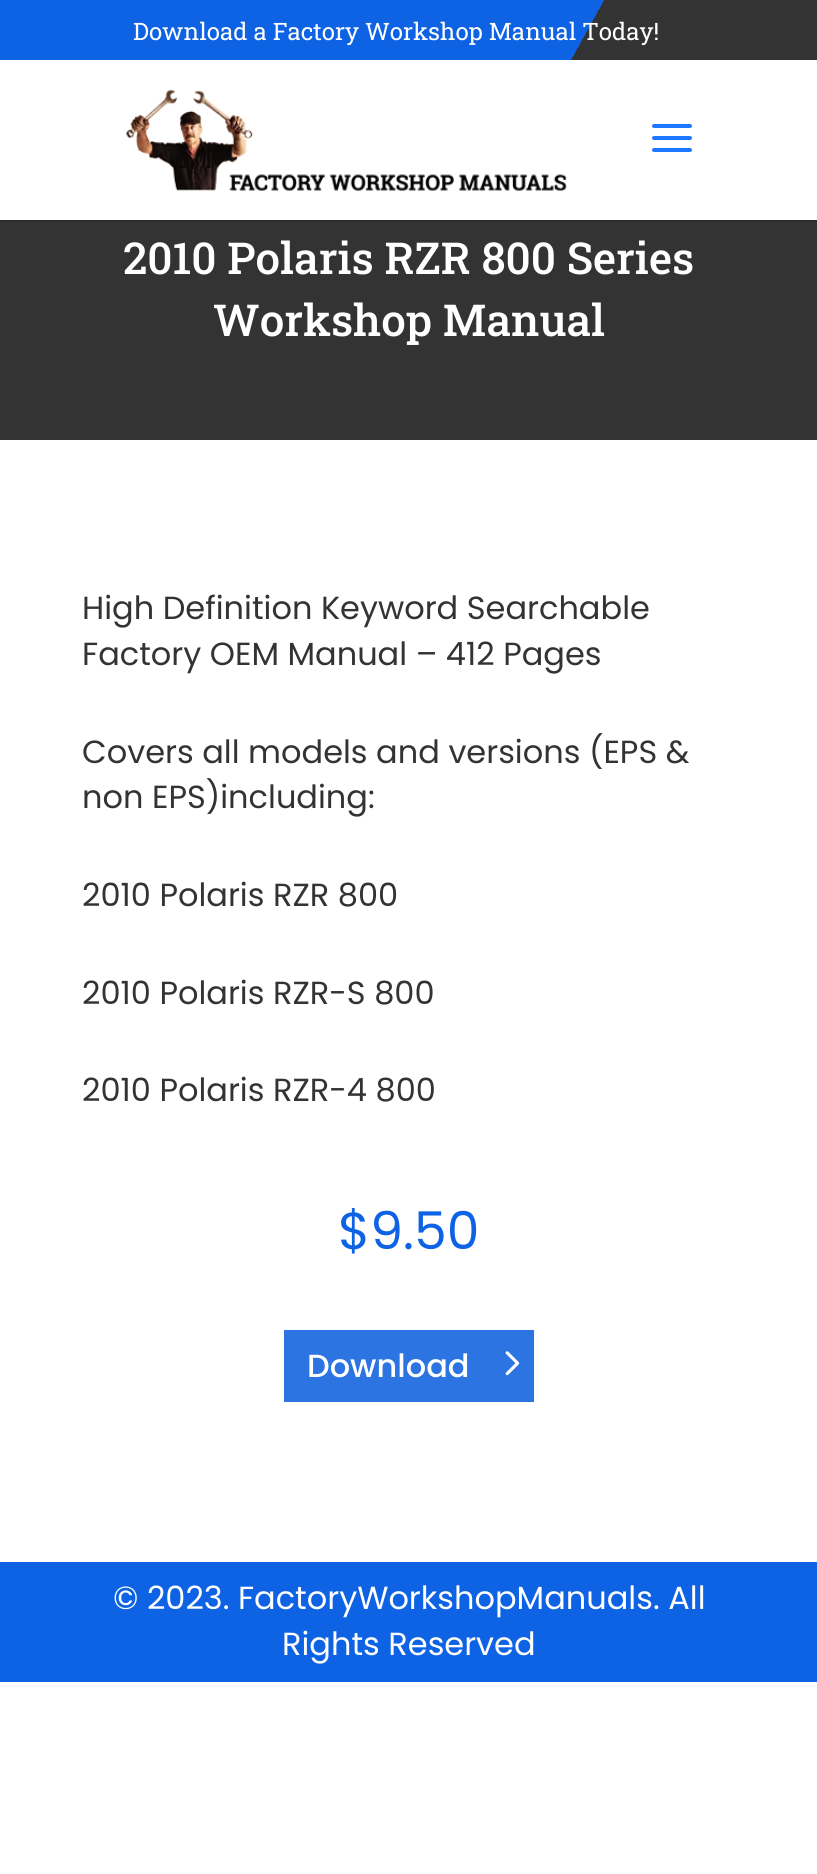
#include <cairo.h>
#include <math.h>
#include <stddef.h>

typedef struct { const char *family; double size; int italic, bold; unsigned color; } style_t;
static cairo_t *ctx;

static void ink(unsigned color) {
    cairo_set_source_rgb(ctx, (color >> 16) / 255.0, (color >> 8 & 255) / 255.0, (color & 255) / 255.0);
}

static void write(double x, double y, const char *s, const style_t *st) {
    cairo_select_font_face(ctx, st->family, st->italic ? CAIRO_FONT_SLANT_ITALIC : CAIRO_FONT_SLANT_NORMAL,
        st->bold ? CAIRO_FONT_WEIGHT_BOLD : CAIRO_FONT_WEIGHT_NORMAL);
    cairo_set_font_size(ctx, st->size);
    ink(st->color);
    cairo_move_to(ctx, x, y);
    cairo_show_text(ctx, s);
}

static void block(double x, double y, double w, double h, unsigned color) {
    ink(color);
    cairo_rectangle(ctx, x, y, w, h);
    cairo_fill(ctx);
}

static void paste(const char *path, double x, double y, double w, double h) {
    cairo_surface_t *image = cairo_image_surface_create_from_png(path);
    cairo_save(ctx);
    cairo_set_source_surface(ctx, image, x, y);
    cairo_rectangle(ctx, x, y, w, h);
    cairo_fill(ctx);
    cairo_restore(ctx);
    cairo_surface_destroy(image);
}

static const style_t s1 = {"Roboto Slab", 24, 0, 0, 0xffffff};
static const style_t s2 = {"Roboto Slab Medium", 44, 0, 0, 0xffffff};
static const style_t s3 = {"Poppins", 32, 0, 0, 0x333333};
static const style_t s4 = {"Poppins", 52, 0, 0, 0x0d63e4};
static const style_t s5 = {"Poppins Medium", 32, 0, 0, 0xffffff};
static const style_t s6 = {"Poppins", 32, 0, 0, 0xffffff};

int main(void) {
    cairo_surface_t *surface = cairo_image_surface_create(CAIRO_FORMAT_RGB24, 817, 1874);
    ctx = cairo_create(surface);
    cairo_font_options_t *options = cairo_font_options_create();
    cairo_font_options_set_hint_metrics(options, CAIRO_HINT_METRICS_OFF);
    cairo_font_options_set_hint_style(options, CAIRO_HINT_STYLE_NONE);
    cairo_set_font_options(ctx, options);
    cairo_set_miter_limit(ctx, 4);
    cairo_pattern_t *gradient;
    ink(0xffffff);
    cairo_paint(ctx);
    gradient = cairo_pattern_create_linear(83, -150, 735, 210);
    cairo_pattern_add_color_stop_rgba(gradient, 0.71, 0.051, 0.388, 0.894, 1);
    cairo_pattern_add_color_stop_rgba(gradient, 0.71, 0.2, 0.2, 0.2, 1);
    cairo_set_source(ctx, gradient);
    cairo_pattern_destroy(gradient);
    cairo_rectangle(ctx, 0, 0, 817, 60);
    cairo_fill(ctx);
    write(133, 40, "Download a Factory Workshop Manual Today!", &s1);
    block(0, 220, 817, 2, 0x2e2e2e);
    paste("pic1.png", 125, 90, 442, 101);
    paste("pic2.png", 652, 124, 40, 28);
    block(0, 222, 817, 218, 0x333333);
    write(123, 274, "2010 Polaris RZR 800 Series", &s2);
    write(213, 336, "Workshop Manual", &s2);
    write(82, 619, "High Definition Keyword Searchable", &s3);
    write(82, 665, "Factory OEM Manual – 412 Pages", &s3);
    write(82, 763, "Covers all models and versions (EPS &", &s3);
    write(82, 808, "non EPS)including:", &s3);
    write(82, 906, "2010 Polaris RZR 800", &s3);
    write(82, 1004, "2010 Polaris RZR-S 800", &s3);
    write(82, 1101, "2010 Polaris RZR-4 800", &s3);
    write(338, 1249, "$9.50", &s4);
    block(284, 1330, 250, 72, 0x2b74e2);
    write(307, 1377, "Download", &s5);
    paste("pic3.png", 505, 1351, 15, 25);
    block(0, 1562, 817, 120, 0x0d63e4);
    write(113, 1609, "© 2023. FactoryWorkshopManuals. All", &s6);
    write(282, 1655, "Rights Reserved", &s6);
    cairo_surface_write_to_png(surface, "screenshot.png");
    cairo_font_options_destroy(options);
    cairo_destroy(ctx);
    cairo_surface_destroy(surface);
    return 0;
}
